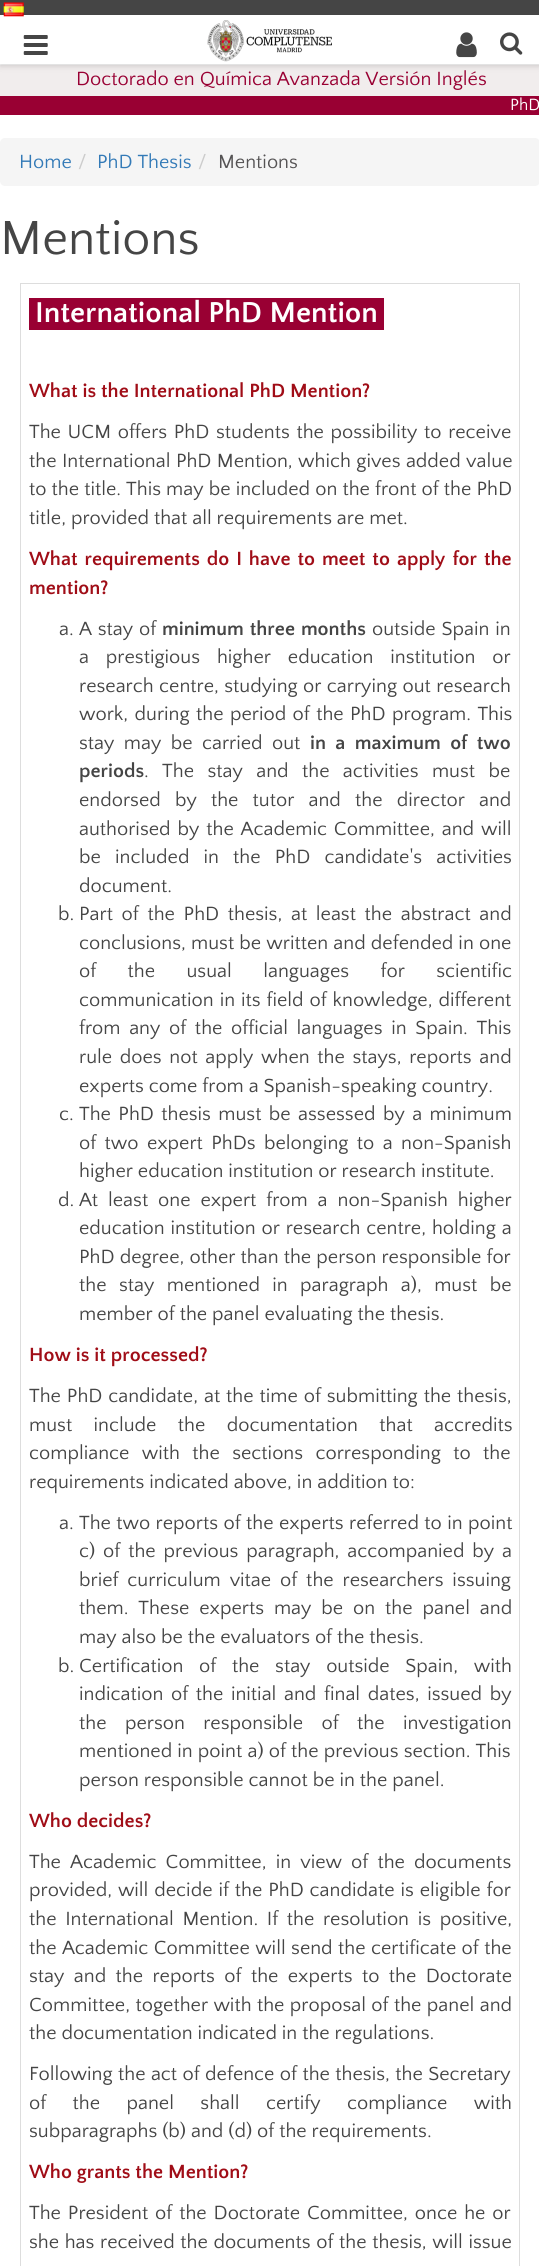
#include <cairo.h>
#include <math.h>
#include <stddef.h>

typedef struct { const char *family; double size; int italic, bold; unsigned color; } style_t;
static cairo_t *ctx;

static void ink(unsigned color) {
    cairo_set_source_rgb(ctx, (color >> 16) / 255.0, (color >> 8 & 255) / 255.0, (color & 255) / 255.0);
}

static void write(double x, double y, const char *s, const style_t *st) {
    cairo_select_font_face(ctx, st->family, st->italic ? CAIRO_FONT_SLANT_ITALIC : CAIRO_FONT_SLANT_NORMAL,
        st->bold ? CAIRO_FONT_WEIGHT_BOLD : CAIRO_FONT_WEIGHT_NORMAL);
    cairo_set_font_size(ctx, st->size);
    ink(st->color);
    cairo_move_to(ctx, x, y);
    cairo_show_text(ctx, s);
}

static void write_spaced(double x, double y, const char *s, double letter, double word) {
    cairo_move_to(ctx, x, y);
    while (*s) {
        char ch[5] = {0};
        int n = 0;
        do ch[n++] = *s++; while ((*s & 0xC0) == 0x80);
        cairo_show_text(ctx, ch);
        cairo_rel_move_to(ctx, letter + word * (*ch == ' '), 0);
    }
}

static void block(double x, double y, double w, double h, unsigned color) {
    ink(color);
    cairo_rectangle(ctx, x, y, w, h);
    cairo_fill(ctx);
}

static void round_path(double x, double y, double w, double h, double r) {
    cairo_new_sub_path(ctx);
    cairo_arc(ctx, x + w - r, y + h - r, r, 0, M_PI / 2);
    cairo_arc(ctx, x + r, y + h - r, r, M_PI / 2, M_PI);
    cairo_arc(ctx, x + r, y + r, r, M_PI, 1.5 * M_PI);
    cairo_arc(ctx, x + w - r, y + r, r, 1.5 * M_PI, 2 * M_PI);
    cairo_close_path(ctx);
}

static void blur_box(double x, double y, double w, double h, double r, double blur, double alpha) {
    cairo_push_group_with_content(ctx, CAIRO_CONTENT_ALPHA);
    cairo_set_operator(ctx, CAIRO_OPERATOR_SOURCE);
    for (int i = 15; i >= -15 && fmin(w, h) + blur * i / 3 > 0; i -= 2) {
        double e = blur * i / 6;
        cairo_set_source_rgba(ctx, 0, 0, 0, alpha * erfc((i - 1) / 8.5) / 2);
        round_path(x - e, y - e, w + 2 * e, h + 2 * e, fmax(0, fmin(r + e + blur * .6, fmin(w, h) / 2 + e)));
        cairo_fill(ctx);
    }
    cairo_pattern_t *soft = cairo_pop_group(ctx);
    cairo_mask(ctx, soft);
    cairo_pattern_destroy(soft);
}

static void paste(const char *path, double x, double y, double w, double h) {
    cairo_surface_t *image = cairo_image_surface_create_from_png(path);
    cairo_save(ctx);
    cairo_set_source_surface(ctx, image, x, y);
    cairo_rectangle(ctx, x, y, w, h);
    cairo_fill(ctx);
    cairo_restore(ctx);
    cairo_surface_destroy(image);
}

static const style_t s1 = {"Quattrocento Sans", 20, 0, 0, 0x990033};
static const style_t s2 = {"Quattrocento Sans", 17, 0, 0, 0xffffff};
static const style_t s3 = {"Quattrocento Sans", 20, 0, 0, 0x337ab7};
static const style_t s4 = {"Quattrocento Sans", 20, 0, 0, 0xcccccc};
static const style_t s5 = {"Quattrocento Sans", 20, 0, 0, 0x555354};
static const style_t s6 = {"Quattrocento Sans", 50, 0, 0, 0x454545};
static const style_t s7 = {"Quattrocento Sans", 30, 0, 1, 0xffffff};
static const style_t s8 = {"Quattrocento Sans", 20, 0, 1, 0xa00d17};
static const style_t s9 = {"Quattrocento Sans", 20, 0, 0, 0x454545};
static const style_t s10 = {"Quattrocento Sans", 20, 0, 1, 0x454545};

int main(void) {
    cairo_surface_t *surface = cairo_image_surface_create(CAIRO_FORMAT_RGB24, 539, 2266);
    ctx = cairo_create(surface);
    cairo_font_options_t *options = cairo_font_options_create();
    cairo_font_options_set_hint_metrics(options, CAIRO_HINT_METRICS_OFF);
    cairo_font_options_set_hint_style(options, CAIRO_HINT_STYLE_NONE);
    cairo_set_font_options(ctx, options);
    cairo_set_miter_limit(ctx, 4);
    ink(0xffffff);
    cairo_paint(ctx);
    block(0, 65, 539, 31, 0xf1eded);
    ink(0x323232);
    blur_box(0, 18, 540, 48, 0, 3, 0.2);
    block(0, 15, 539, 49, 0xffffff);
    paste("pic1.png", 23, 35, 25, 20);
    block(0, 0, 539, 15, 0x454545);
    paste("pic2.png", 3, 2, 21, 15);
    paste("pic3.png", 456, 32, 21, 26);
    paste("pic4.png", 500, 32, 23, 23);
    paste("pic5.png", 207, 20, 125, 42);
    write(76, 85, "Doctorado en Química Avanzada Versión Inglés", &s1);
    block(0, 96, 539, 19, 0x990033);
    write(510, 110, "PhD", &s2);
    ink(0xf5f5f5);
    round_path(0, 138, 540, 48, 5);
    cairo_fill(ctx);
    write(19, 168, "Home", &s3);
    write(78, 168, "/", &s4);
    write(97, 168, "PhD Thesis", &s3);
    write(198, 168, "/", &s4);
    write(218, 168, "Mentions", &s5);
    write(0, 254, "Mentions", &s6);
    cairo_rectangle(ctx, 20.5, 283.5, 499, 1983);
    ink(0xdddddd);
    cairo_set_line_width(ctx, 1);
    cairo_stroke(ctx);
    block(29, 298, 355, 32, 0x990033);
    write(35, 322, "International PhD Mention", &s7);
    write(29, 397, "What is the International PhD Mention?", &s8);
    cairo_select_font_face(ctx, "Quattrocento Sans", CAIRO_FONT_SLANT_NORMAL, CAIRO_FONT_WEIGHT_NORMAL);
    ink(0x454545);
    write_spaced(29, 438, "The UCM offers PhD students the possibility to receive", 0, 1.75);
    write_spaced(29, 467, "the International PhD Mention, which gives added value", 0, 0.5);
    write_spaced(29, 495, "to the title. This may be included on the front of the PhD", 0, 0.2);
    write(29, 524, "title, provided that all requirements are met.", &s9);
    cairo_select_font_face(ctx, "Quattrocento Sans", CAIRO_FONT_SLANT_NORMAL, CAIRO_FONT_WEIGHT_BOLD);
    ink(0xa00d17);
    write_spaced(29, 565, "What requirements do I have to meet to apply for the", 0, 2);
    write(29, 594, "mention?", &s8);
    write(59, 635, "a.", &s9);
    write_spaced(79, 635, "A stay of", 0, 1);
    cairo_select_font_face(ctx, "Quattrocento Sans", CAIRO_FONT_SLANT_NORMAL, CAIRO_FONT_WEIGHT_BOLD);
    write_spaced(162, 635, "minimum three months", 0, 1);
    cairo_select_font_face(ctx, "Quattrocento Sans", CAIRO_FONT_SLANT_NORMAL, CAIRO_FONT_WEIGHT_NORMAL);
    write_spaced(372, 635, "outside Spain in", 0, 1);
    write_spaced(79, 663, "a prestigious higher education institution or", 0, 12);
    write_spaced(79, 692, "research centre, studying or carrying out research", 0, 0.5);
    write_spaced(79, 720, "work, during the period of the PhD program. This", 0, 1.5);
    write_spaced(79, 749, "stay may be carried out", 0, 4.5);
    cairo_select_font_face(ctx, "Quattrocento Sans", CAIRO_FONT_SLANT_NORMAL, CAIRO_FONT_WEIGHT_BOLD);
    write_spaced(310, 749, "in a maximum of two", 0, 4.5);
    write(79, 777, "periods", &s10);
    cairo_select_font_face(ctx, "Quattrocento Sans", CAIRO_FONT_SLANT_NORMAL, CAIRO_FONT_WEIGHT_NORMAL);
    write_spaced(144, 777, ". The stay and the activities must be", 0, 8.5);
    write_spaced(79, 806, "endorsed by the tutor and the director and", 0, 9.25);
    write_spaced(79, 835, "authorised by the Academic Committee, and will", 0, 2);
    write_spaced(79, 863, "be included in the PhD candidate's activities", 0, 9.25);
    write(79, 892, "document.", &s9);
    write(58, 920, "b.", &s9);
    write_spaced(79, 920, "Part of the PhD thesis, at least the abstract and", 0, 3.75);
    write_spaced(79, 949, "conclusions, must be written and defended in one", 0, 0.25);
    write_spaced(79, 977, "of the usual languages for scientific", 0, 26.5);
    write_spaced(79, 1006, "communication in its field of knowledge, different", 0, 1);
    write_spaced(79, 1034, "from any of the official languages in Spain. This", 0, 3.75);
    write_spaced(79, 1063, "rule does not apply when the stays, reports and", 0, 2.75);
    write(79, 1092, "experts come from a Spanish-speaking country.", &s9);
    write(59, 1120, "c.", &s9);
    write_spaced(79, 1120, "The PhD thesis must be assessed by a minimum", 0, 2.5);
    write_spaced(79, 1149, "of two expert PhDs belonging to a non-Spanish", 0, 3.5);
    write(79, 1177, "higher education institution or research institute.", &s9);
    write(58, 1206, "d.", &s9);
    write_spaced(79, 1206, "At least one expert from a non-Spanish higher", 0, 5);
    write_spaced(79, 1234, "education institution or research centre, holding a", 0, 1);
    write_spaced(79, 1263, "PhD degree, other than the person responsible for", 0, 0.25);
    write_spaced(79, 1291, "the stay mentioned in paragraph a), must be", 0, 7.5);
    write(79, 1320, "member of the panel evaluating the thesis.", &s9);
    write(29, 1361, "How is it processed?", &s8);
    cairo_select_font_face(ctx, "Quattrocento Sans", CAIRO_FONT_SLANT_NORMAL, CAIRO_FONT_WEIGHT_NORMAL);
    ink(0x454545);
    write_spaced(29, 1402, "The PhD candidate, at the time of submitting the thesis,", 0, 1);
    write_spaced(29, 1431, "must include the documentation that accredits", 0, 16.5);
    write_spaced(29, 1459, "compliance with the sections corresponding to the", 0, 7.5);
    write(29, 1488, "requirements indicated above, in addition to:", &s9);
    write(59, 1529, "a.", &s9);
    write_spaced(79, 1529, "The two reports of the experts referred to in point", 0, 0.5);
    write_spaced(79, 1557, "c) of the previous paragraph, accompanied by a", 0, 3);
    write_spaced(79, 1586, "brief curriculum vitae of the researchers issuing", 0, 4);
    write_spaced(79, 1614, "them. These experts may be on the panel and", 0, 5);
    write(79, 1643, "may also be the evaluators of the thesis.", &s9);
    write(58, 1672, "b.", &s9);
    write_spaced(79, 1672, "Certification of the stay outside Spain, with", 0, 10.75);
    write_spaced(79, 1700, "indication of the initial and final dates, issued by", 0, 2.75);
    write_spaced(79, 1729, "the person responsible of the investigation", 0, 13.5);
    write_spaced(79, 1757, "mentioned in point a) of the previous section. This", 0, 0.25);
    write(79, 1786, "person responsible cannot be in the panel.", &s9);
    write(29, 1827, "Who decides?", &s8);
    cairo_select_font_face(ctx, "Quattrocento Sans", CAIRO_FONT_SLANT_NORMAL, CAIRO_FONT_WEIGHT_NORMAL);
    ink(0x454545);
    write_spaced(29, 1868, "The Academic Committee, in view of the documents", 0, 4.25);
    write_spaced(29, 1896, "provided, will decide if the PhD candidate is eligible for", 0, 1);
    write_spaced(29, 1925, "the International Mention. If the resolution is positive,", 0, 3.75);
    write_spaced(29, 1954, "the Academic Committee will send the certificate of the", 0, 0.5);
    write_spaced(29, 1982, "stay and the reports of the experts to the Doctorate", 0, 4.5);
    write_spaced(29, 2011, "Committee, together with the proposal of the panel and", 0, 0.5);
    write(29, 2039, "the documentation indicated in the regulations.", &s9);
    write_spaced(29, 2080, "Following the act of defence of the thesis, the Secretary", 0, 0.5);
    write_spaced(29, 2109, "of the panel shall certify compliance with", 0, 21.5);
    write(29, 2137, "subparagraphs (b) and (d) of the requirements.", &s9);
    write(29, 2178, "Who grants the Mention?", &s8);
    cairo_select_font_face(ctx, "Quattrocento Sans", CAIRO_FONT_SLANT_NORMAL, CAIRO_FONT_WEIGHT_NORMAL);
    ink(0x454545);
    write_spaced(29, 2219, "The President of the Doctorate Committee, once he or", 0, 2);
    write_spaced(29, 2248, "she has received the documents of the thesis, will issue", 0, 0.75);
    cairo_surface_write_to_png(surface, "screenshot.png");
    cairo_font_options_destroy(options);
    cairo_destroy(ctx);
    cairo_surface_destroy(surface);
    return 0;
}
